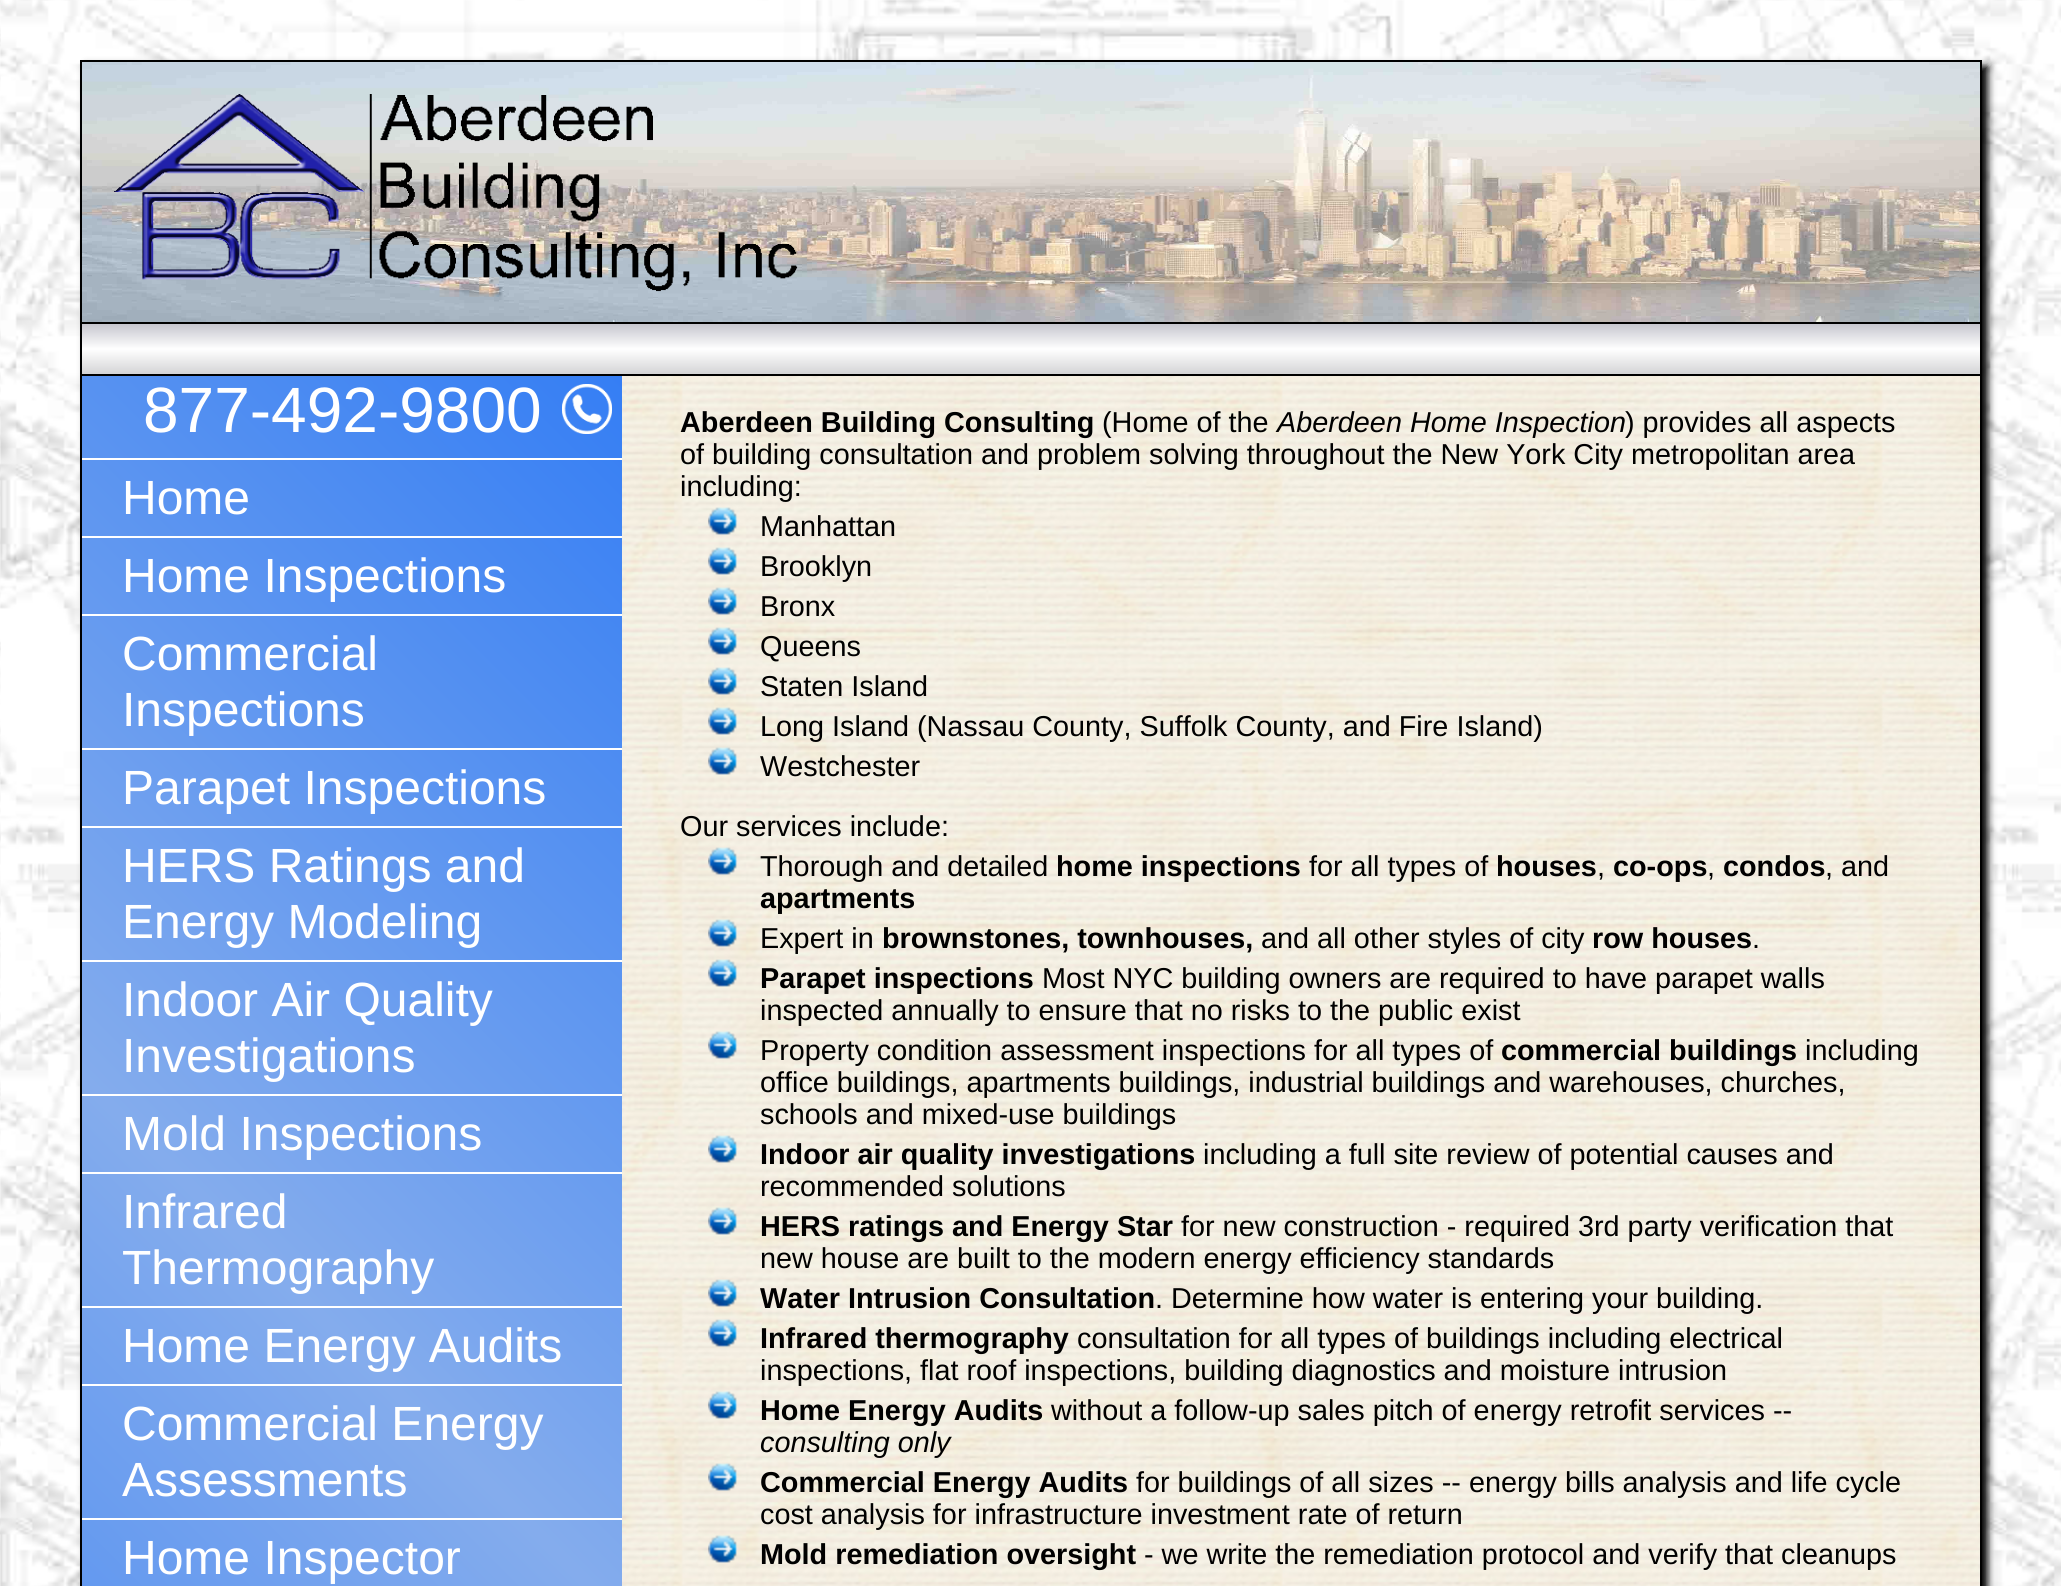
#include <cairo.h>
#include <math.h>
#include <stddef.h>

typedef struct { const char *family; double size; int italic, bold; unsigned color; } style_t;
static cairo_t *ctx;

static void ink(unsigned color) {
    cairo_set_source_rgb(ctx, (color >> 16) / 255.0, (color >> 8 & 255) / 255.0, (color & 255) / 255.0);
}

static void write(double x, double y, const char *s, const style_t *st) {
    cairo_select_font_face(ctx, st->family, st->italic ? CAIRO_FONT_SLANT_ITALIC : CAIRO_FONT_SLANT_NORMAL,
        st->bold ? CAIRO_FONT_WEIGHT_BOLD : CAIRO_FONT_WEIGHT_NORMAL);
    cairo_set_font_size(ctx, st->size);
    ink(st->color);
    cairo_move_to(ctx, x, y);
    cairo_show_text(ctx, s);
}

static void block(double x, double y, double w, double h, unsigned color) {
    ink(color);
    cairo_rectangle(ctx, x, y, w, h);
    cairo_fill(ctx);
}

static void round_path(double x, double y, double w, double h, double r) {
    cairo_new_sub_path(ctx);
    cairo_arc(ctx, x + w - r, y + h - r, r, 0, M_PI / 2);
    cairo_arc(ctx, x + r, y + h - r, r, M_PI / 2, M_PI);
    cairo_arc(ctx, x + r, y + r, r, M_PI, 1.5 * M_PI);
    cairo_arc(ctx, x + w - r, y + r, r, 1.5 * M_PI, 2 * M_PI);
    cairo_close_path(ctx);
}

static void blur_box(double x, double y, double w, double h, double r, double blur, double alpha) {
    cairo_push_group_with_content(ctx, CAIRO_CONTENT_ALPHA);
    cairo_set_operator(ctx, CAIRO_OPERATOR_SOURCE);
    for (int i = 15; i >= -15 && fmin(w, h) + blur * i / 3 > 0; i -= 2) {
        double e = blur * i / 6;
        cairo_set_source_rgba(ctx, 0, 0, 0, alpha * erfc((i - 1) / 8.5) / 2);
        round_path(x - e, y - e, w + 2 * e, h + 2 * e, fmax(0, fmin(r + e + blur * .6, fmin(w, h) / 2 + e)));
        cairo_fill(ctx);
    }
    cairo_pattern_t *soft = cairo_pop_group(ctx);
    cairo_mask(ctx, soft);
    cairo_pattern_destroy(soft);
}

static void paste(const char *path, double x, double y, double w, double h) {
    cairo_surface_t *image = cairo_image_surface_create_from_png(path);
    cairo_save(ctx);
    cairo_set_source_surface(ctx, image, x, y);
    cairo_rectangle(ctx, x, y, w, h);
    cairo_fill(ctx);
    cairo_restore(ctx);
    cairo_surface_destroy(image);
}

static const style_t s1 = {"Liberation Sans", 64, 0, 0, 0xffffff};
static const style_t s2 = {"Liberation Sans", 48, 0, 0, 0xffffff};
static const style_t s3 = {"Liberation Sans", 28.8, 0, 1, 0x000000};
static const style_t s4 = {"Liberation Sans", 28.8, 0, 0, 0x000000};
static const style_t s5 = {"Liberation Sans", 28.8, 1, 0, 0x000000};

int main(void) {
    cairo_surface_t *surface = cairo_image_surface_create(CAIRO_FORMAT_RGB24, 2061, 1586);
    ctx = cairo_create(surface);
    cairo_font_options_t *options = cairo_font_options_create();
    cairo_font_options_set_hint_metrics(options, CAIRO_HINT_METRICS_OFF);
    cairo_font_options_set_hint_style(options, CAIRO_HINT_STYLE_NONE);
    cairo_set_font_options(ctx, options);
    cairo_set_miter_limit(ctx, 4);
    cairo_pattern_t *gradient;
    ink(0xffffff);
    cairo_paint(ctx);
    paste("pic1.png", 0, 0, 2061, 1586);
    ink(0x000000);
    blur_box(86, 66, 1902, 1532, 0, 4, 1);
    paste("pic2.png", 622, 376, 1358, 1210);
    cairo_rectangle(ctx, 81, 61, 1900, 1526);
    ink(0x000000);
    cairo_stroke(ctx);
    paste("pic3.png", 82, 62, 1898, 260);
    paste("pic4.png", 114, 94, 684, 198);
    gradient = cairo_pattern_create_linear(1031, 374, 1031, 324);
    cairo_pattern_add_color_stop_rgba(gradient, 0, 0.831, 0.831, 0.839, 1);
    cairo_pattern_add_color_stop_rgba(gradient, 0.5, 1, 1, 1, 1);
    cairo_pattern_add_color_stop_rgba(gradient, 1, 0.776, 0.776, 0.808, 1);
    cairo_set_source(ctx, gradient);
    cairo_pattern_destroy(gradient);
    cairo_rectangle(ctx, 82, 324, 1898, 50);
    cairo_fill(ctx);
    block(82, 322, 1898, 2, 0x000000);
    block(82, 374, 1898, 2, 0x000000);
    gradient = cairo_pattern_create_linear(-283, 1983, 987, 713);
    cairo_pattern_add_color_stop_rgba(gradient, 0, 0.2, 0.49, 0.957, 1);
    cairo_pattern_add_color_stop_rgba(gradient, 0.5, 0.518, 0.675, 0.929, 1);
    cairo_pattern_add_color_stop_rgba(gradient, 1, 0.2, 0.49, 0.957, 1);
    cairo_set_source(ctx, gradient);
    cairo_pattern_destroy(gradient);
    cairo_rectangle(ctx, 82, 376, 540, 1210);
    cairo_fill(ctx);
    block(82, 458, 540, 2, 0xffffff);
    write(143, 432, "877-492-9800", &s1);
    paste("pic5.png", 562, 384, 50, 50);
    block(82, 536, 540, 2, 0xffffff);
    write(122, 514, "Home", &s2);
    block(82, 614, 540, 2, 0xffffff);
    write(122, 592, "Home Inspections", &s2);
    block(82, 748, 540, 2, 0xffffff);
    write(122, 670, "Commercial", &s2);
    write(122, 726, "Inspections", &s2);
    block(82, 826, 540, 2, 0xffffff);
    write(122, 804, "Parapet Inspections", &s2);
    block(82, 960, 540, 2, 0xffffff);
    write(122, 882, "HERS Ratings and", &s2);
    write(122, 938, "Energy Modeling", &s2);
    block(82, 1094, 540, 2, 0xffffff);
    write(122, 1016, "Indoor Air Quality", &s2);
    write(122, 1072, "Investigations", &s2);
    block(82, 1172, 540, 2, 0xffffff);
    write(122, 1150, "Mold Inspections", &s2);
    block(82, 1306, 540, 2, 0xffffff);
    write(122, 1228, "Infrared", &s2);
    write(122, 1284, "Thermography", &s2);
    block(82, 1384, 540, 2, 0xffffff);
    write(122, 1362, "Home Energy Audits", &s2);
    block(82, 1518, 540, 2, 0xffffff);
    write(122, 1440, "Commercial Energy", &s2);
    write(122, 1496, "Assessments", &s2);
    write(122, 1574, "Home Inspector", &s2);
    write(680, 432, "Aberdeen Building Consulting", &s3);
    write(1102, 432, "(Home of the", &s4);
    write(1277, 432, "Aberdeen Home Inspection", &s5);
    write(1625, 432, ") provides all aspects", &s4);
    write(680, 464, "of building consultation and problem solving throughout the New York City metropolitan area", &s4);
    write(680, 496, "including:", &s4);
    paste("pic6.png", 708, 507, 30, 28);
    write(760, 536, "Manhattan", &s4);
    paste("pic7.png", 708, 547, 30, 28);
    write(760, 576, "Brooklyn", &s4);
    paste("pic8.png", 708, 587, 30, 28);
    write(760, 616, "Bronx", &s4);
    paste("pic9.png", 708, 627, 30, 28);
    write(760, 656, "Queens", &s4);
    paste("pic10.png", 708, 667, 30, 28);
    write(760, 696, "Staten Island", &s4);
    paste("pic11.png", 708, 707, 30, 28);
    write(760, 736, "Long Island (Nassau County, Suffolk County, and Fire Island)", &s4);
    paste("pic12.png", 708, 747, 30, 28);
    write(760, 776, "Westchester", &s4);
    write(680, 836, "Our services include:", &s4);
    paste("pic13.png", 708, 847, 30, 28);
    write(760, 876, "Thorough and detailed", &s4);
    write(1056, 876, "home inspections", &s3);
    write(1309, 876, "for all types of", &s4);
    write(1496, 876, "houses", &s3);
    write(1597, 876, ",", &s4);
    write(1613, 876, "co-ops", &s3);
    write(1707, 876, ",", &s4);
    write(1723, 876, "condos", &s3);
    write(1825, 876, ", and", &s4);
    write(760, 908, "apartments", &s3);
    paste("pic14.png", 708, 919, 30, 28);
    write(760, 948, "Expert in", &s4);
    write(882, 948, "brownstones, townhouses,", &s3);
    write(1261, 948, "and all other styles of city", &s4);
    write(1592, 948, "row houses", &s3);
    write(1752, 948, ".", &s4);
    paste("pic15.png", 708, 959, 30, 28);
    write(760, 988, "Parapet inspections", &s3);
    write(1042, 988, "Most NYC building owners are required to have parapet walls", &s4);
    write(760, 1020, "inspected annually to ensure that no risks to the public exist", &s4);
    paste("pic16.png", 708, 1031, 30, 28);
    write(760, 1060, "Property condition assessment inspections for all types of", &s4);
    write(1501, 1060, "commercial buildings", &s3);
    write(1805, 1060, "including", &s4);
    write(760, 1092, "office buildings, apartments buildings, industrial buildings and warehouses, churches,", &s4);
    write(760, 1124, "schools and mixed-use buildings", &s4);
    paste("pic17.png", 708, 1135, 30, 28);
    write(760, 1164, "Indoor air quality investigations", &s3);
    write(1203, 1164, "including a full site review of potential causes and", &s4);
    write(760, 1196, "recommended solutions", &s4);
    paste("pic18.png", 708, 1207, 30, 28);
    write(760, 1236, "HERS ratings and Energy Star", &s3);
    write(1181, 1236, "for new construction - required 3rd party verification that", &s4);
    write(760, 1268, "new house are built to the modern energy efficiency standards", &s4);
    paste("pic19.png", 708, 1279, 30, 28);
    write(760, 1308, "Water Intrusion Consultation", &s3);
    write(1155, 1308, ". Determine how water is entering your building.", &s4);
    paste("pic20.png", 708, 1319, 30, 28);
    write(760, 1348, "Infrared thermography", &s3);
    write(1077, 1348, "consultation for all types of buildings including electrical", &s4);
    write(760, 1380, "inspections, flat roof inspections, building diagnostics and moisture intrusion", &s4);
    paste("pic21.png", 708, 1391, 30, 28);
    write(760, 1420, "Home Energy Audits", &s3);
    write(1051, 1420, "without a follow-up sales pitch of energy retrofit services --", &s4);
    write(760, 1452, "consulting only", &s5);
    paste("pic22.png", 708, 1463, 30, 28);
    write(760, 1492, "Commercial Energy Audits", &s3);
    write(1136, 1492, "for buildings of all sizes -- energy bills analysis and life cycle", &s4);
    write(760, 1524, "cost analysis for infrastructure investment rate of return", &s4);
    paste("pic23.png", 708, 1535, 31, 28);
    write(760, 1564, "Mold remediation oversight", &s3);
    write(1144, 1564, "- we write the remediation protocol and verify that cleanups", &s4);
    cairo_surface_write_to_png(surface, "screenshot.png");
    cairo_font_options_destroy(options);
    cairo_destroy(ctx);
    cairo_surface_destroy(surface);
    return 0;
}
